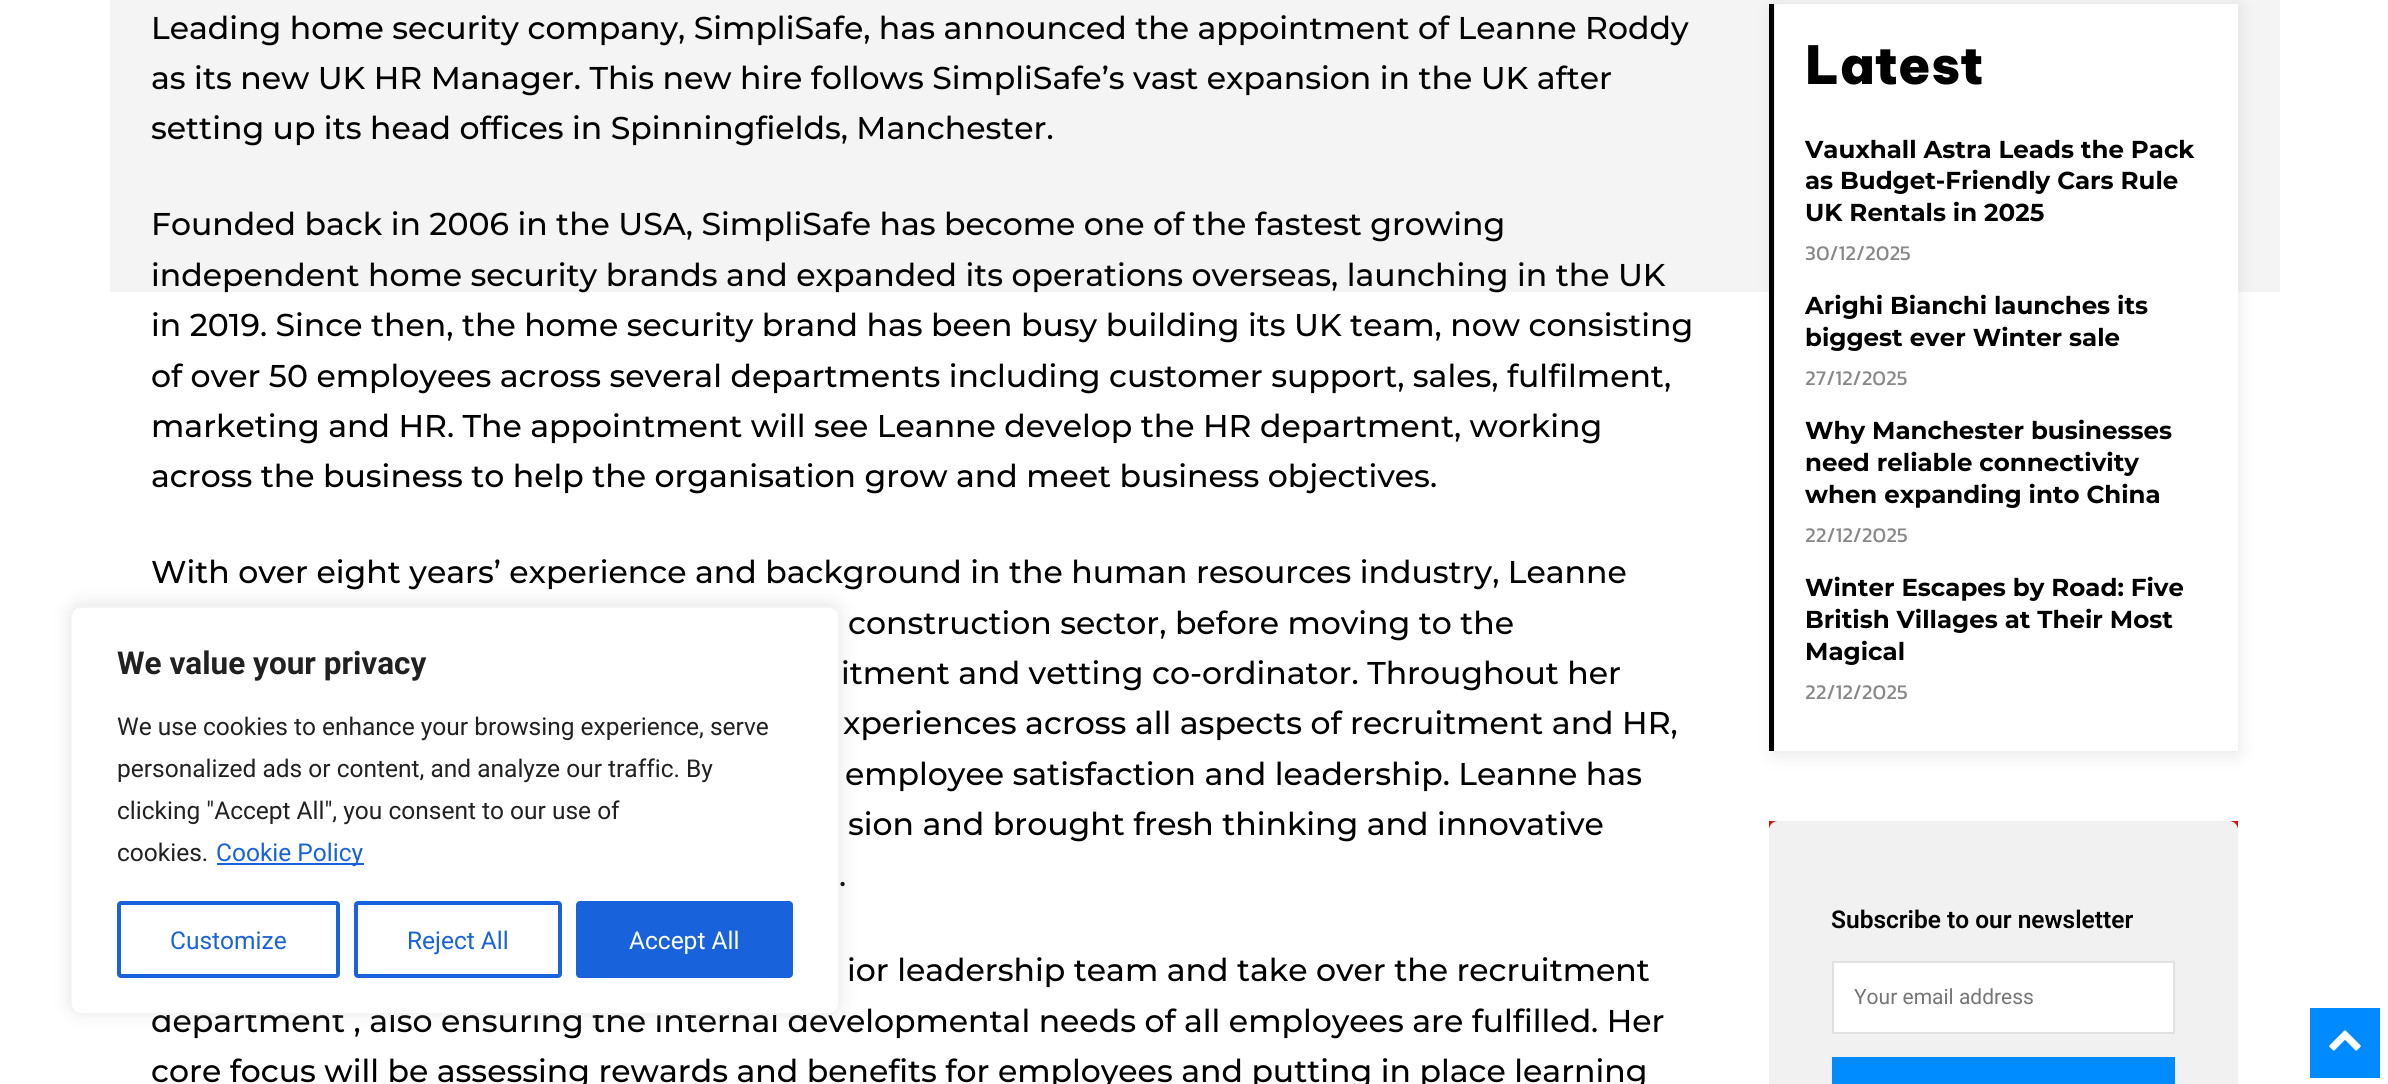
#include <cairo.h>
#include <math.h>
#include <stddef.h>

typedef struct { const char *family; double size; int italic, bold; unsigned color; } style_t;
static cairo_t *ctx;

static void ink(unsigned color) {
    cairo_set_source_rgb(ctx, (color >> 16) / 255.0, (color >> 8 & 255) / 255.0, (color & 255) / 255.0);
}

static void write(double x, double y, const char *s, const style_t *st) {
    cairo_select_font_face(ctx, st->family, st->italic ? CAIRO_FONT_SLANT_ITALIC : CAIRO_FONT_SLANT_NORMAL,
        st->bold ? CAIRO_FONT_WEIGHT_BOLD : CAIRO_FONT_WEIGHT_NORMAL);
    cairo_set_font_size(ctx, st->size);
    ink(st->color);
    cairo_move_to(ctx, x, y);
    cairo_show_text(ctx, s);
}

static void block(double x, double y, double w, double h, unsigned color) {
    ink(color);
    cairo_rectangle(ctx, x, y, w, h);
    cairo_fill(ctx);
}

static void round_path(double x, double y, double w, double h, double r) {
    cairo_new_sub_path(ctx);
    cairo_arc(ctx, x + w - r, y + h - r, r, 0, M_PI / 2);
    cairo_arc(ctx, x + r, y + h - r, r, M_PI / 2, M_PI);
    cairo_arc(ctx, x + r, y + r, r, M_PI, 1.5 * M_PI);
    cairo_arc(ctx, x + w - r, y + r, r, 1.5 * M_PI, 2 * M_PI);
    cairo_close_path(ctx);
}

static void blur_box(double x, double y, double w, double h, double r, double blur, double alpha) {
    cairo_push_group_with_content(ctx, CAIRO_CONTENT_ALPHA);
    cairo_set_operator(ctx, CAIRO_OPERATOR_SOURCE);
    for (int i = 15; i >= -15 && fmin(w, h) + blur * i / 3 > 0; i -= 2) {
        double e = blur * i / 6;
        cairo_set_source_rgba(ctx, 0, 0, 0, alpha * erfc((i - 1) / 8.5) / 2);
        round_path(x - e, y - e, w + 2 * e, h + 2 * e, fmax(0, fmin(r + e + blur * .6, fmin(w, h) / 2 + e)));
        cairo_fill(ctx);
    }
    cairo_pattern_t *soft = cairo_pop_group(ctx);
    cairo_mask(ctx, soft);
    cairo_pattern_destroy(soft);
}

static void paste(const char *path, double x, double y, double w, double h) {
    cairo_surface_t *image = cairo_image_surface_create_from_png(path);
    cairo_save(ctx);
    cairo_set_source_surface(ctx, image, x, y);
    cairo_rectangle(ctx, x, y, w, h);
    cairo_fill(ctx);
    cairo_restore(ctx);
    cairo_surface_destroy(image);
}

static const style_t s1 = {"Montserrat Medium", 31.5, 0, 0, 0x000000};
static const style_t s2 = {"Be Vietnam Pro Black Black", 52.5, 0, 0, 0x000000};
static const style_t s3 = {"Montserrat", 24.5, 0, 1, 0x000000};
static const style_t s4 = {"Kanit", 21, 0, 0, 0x888888};
static const style_t s5 = {"Roboto SemiBold", 24.5, 0, 0, 0x000000};
static const style_t s6 = {"Roboto", 21, 0, 0, 0x757575};
static const style_t s7 = {"Roboto", 31.5, 0, 1, 0x212121};
static const style_t s8 = {"Roboto", 24.5, 0, 0, 0x212121};
static const style_t s9 = {"Roboto", 24.5, 0, 0, 0x1863dc};
static const style_t s10 = {"Roboto", 24.5, 0, 0, 0xffffff};

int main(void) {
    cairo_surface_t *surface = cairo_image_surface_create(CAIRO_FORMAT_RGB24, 2388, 1084);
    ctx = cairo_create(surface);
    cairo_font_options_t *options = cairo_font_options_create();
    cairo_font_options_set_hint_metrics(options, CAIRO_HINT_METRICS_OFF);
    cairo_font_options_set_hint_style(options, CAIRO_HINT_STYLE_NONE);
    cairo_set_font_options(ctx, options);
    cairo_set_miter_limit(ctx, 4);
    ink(0xffffff);
    cairo_paint(ctx);
    block(110, 0, 2170, 292, 0xf4f4f4);
    write(151, 39, "Leading home security company, SimpliSafe, has announced the appointment of Leanne Roddy", &s1);
    write(151, 89, "as its new UK HR Manager. This new hire follows SimpliSafe’s vast expansion in the UK after", &s1);
    write(151, 139, "setting up its head offices in Spinningfields, Manchester.", &s1);
    write(151, 235, "Founded back in 2006 in the USA, SimpliSafe has become one of the fastest growing", &s1);
    write(151, 286, "independent home security brands and expanded its operations overseas, launching in the UK", &s1);
    write(151, 336, "in 2019. Since then, the home security brand has been busy building its UK team, now consisting", &s1);
    write(151, 387, "of over 50 employees across several departments including customer support, sales, fulfilment,", &s1);
    write(151, 437, "marketing and HR. The appointment will see Leanne develop the HR department, working", &s1);
    write(151, 487, "across the business to help the organisation grow and meet business objectives.", &s1);
    write(151, 583, "With over eight years’ experience and background in the human resources industry, Leanne", &s1);
    write(848, 634, "construction sector, before moving to the", &s1);
    write(841, 684, "itment and vetting co-ordinator. Throughout her", &s1);
    write(843, 734, "xperiences across all aspects of recruitment and HR,", &s1);
    write(845, 785, "employee satisfaction and leadership. Leanne has", &s1);
    write(848, 835, "sion and brought fresh thinking and innovative", &s1);
    write(839, 886, ".", &s1);
    write(847, 981, "ior leadership team and take over the recruitment", &s1);
    write(151, 1032, "department , also ensuring the internal developmental needs of all employees are fulfilled. Her", &s1);
    write(151, 1082, "core focus will be assessing rewards and benefits for employees and putting in place learning", &s1);
    block(1769, 4, 5, 747, 0x000000);
    block(1775, 4, 463, 288, 0xffffff);
    cairo_save(ctx);
    cairo_set_fill_rule(ctx, CAIRO_FILL_RULE_EVEN_ODD);
    cairo_new_path(ctx);
    cairo_move_to(ctx, 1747, 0);
    cairo_line_to(ctx, 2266, 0);
    cairo_line_to(ctx, 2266, 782);
    cairo_line_to(ctx, 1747, 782);
    cairo_close_path(ctx);
    cairo_move_to(ctx, 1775, 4);
    cairo_line_to(ctx, 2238, 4);
    cairo_line_to(ctx, 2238, 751);
    cairo_line_to(ctx, 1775, 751);
    cairo_close_path(ctx);
    cairo_clip(ctx);
    ink(0x000000);
    blur_box(1775, 7, 463, 747, 0, 9, 0.1);
    cairo_restore(ctx);
    write(1805, 84, "Latest", &s2);
    write(1805, 158, "Vauxhall Astra Leads the Pack", &s3);
    write(1805, 189, "as Budget-Friendly Cars Rule", &s3);
    write(1805, 221, "UK Rentals in 2025", &s3);
    write(1805, 260, "30/12/2025", &s4);
    write(1805, 314, "Arighi Bianchi launches its", &s3);
    write(1805, 346, "biggest ever Winter sale", &s3);
    write(1805, 385, "27/12/2025", &s4);
    write(1805, 439, "Why Manchester businesses", &s3);
    write(1805, 471, "need reliable connectivity", &s3);
    write(1805, 503, "when expanding into China", &s3);
    write(1805, 542, "22/12/2025", &s4);
    write(1805, 596, "Winter Escapes by Road: Five", &s3);
    write(1805, 628, "British Villages at Their Most", &s3);
    write(1805, 660, "Magical", &s3);
    write(1805, 699, "22/12/2025", &s4);
    block(1769, 821, 469, 7, 0xda1414);
    ink(0xf1f1f1);
    round_path(1769, 821, 469, 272, 9);
    cairo_fill(ctx);
    write(1831, 928, "Subscribe to our newsletter", &s5);
    ink(0xffffff);
    cairo_rectangle(ctx, 1833, 962, 341, 71);
    cairo_fill_preserve(ctx);
    ink(0xe1e1e1);
    cairo_stroke(ctx);
    write(1854, 1004, "Your email address", &s6);
    block(1832, 1057, 343, 27, 0x008cff);
    ink(0xacabab);
    blur_box(70, 604, 770, 409, 11, 9, 0.3);
    ink(0xffffff);
    round_path(71, 607, 768, 407, 10);
    cairo_fill_preserve(ctx);
    ink(0xf4f4f4);
    cairo_stroke(ctx);
    write(117, 674, "We value your privacy", &s7);
    write(117, 735, "We use cookies to enhance your browsing experience, serve", &s8);
    write(117, 777, "personalized ads or content, and analyze our traffic. By", &s8);
    write(117, 819, "clicking \"Accept All\", you consent to our use of", &s8);
    write(117, 861, "cookies.", &s8);
    block(217, 863, 147, 2, 0x1863dc);
    write(216, 861, "Cookie Policy", &s9);
    round_path(119, 903, 219, 73, 2);
    cairo_set_line_width(ctx, 4);
    cairo_stroke(ctx);
    write(170, 949, "Customize", &s9);
    round_path(356, 903, 204, 73, 2);
    cairo_stroke(ctx);
    write(407, 949, "Reject All", &s9);
    round_path(578, 903, 213, 73, 2);
    cairo_fill_preserve(ctx);
    cairo_stroke(ctx);
    write(629, 949, "Accept All", &s10);
    block(2310, 1008, 70, 70, 0x008aff);
    paste("pic1.png", 2329, 1030, 32, 21);
    cairo_surface_write_to_png(surface, "screenshot.png");
    cairo_font_options_destroy(options);
    cairo_destroy(ctx);
    cairo_surface_destroy(surface);
    return 0;
}
